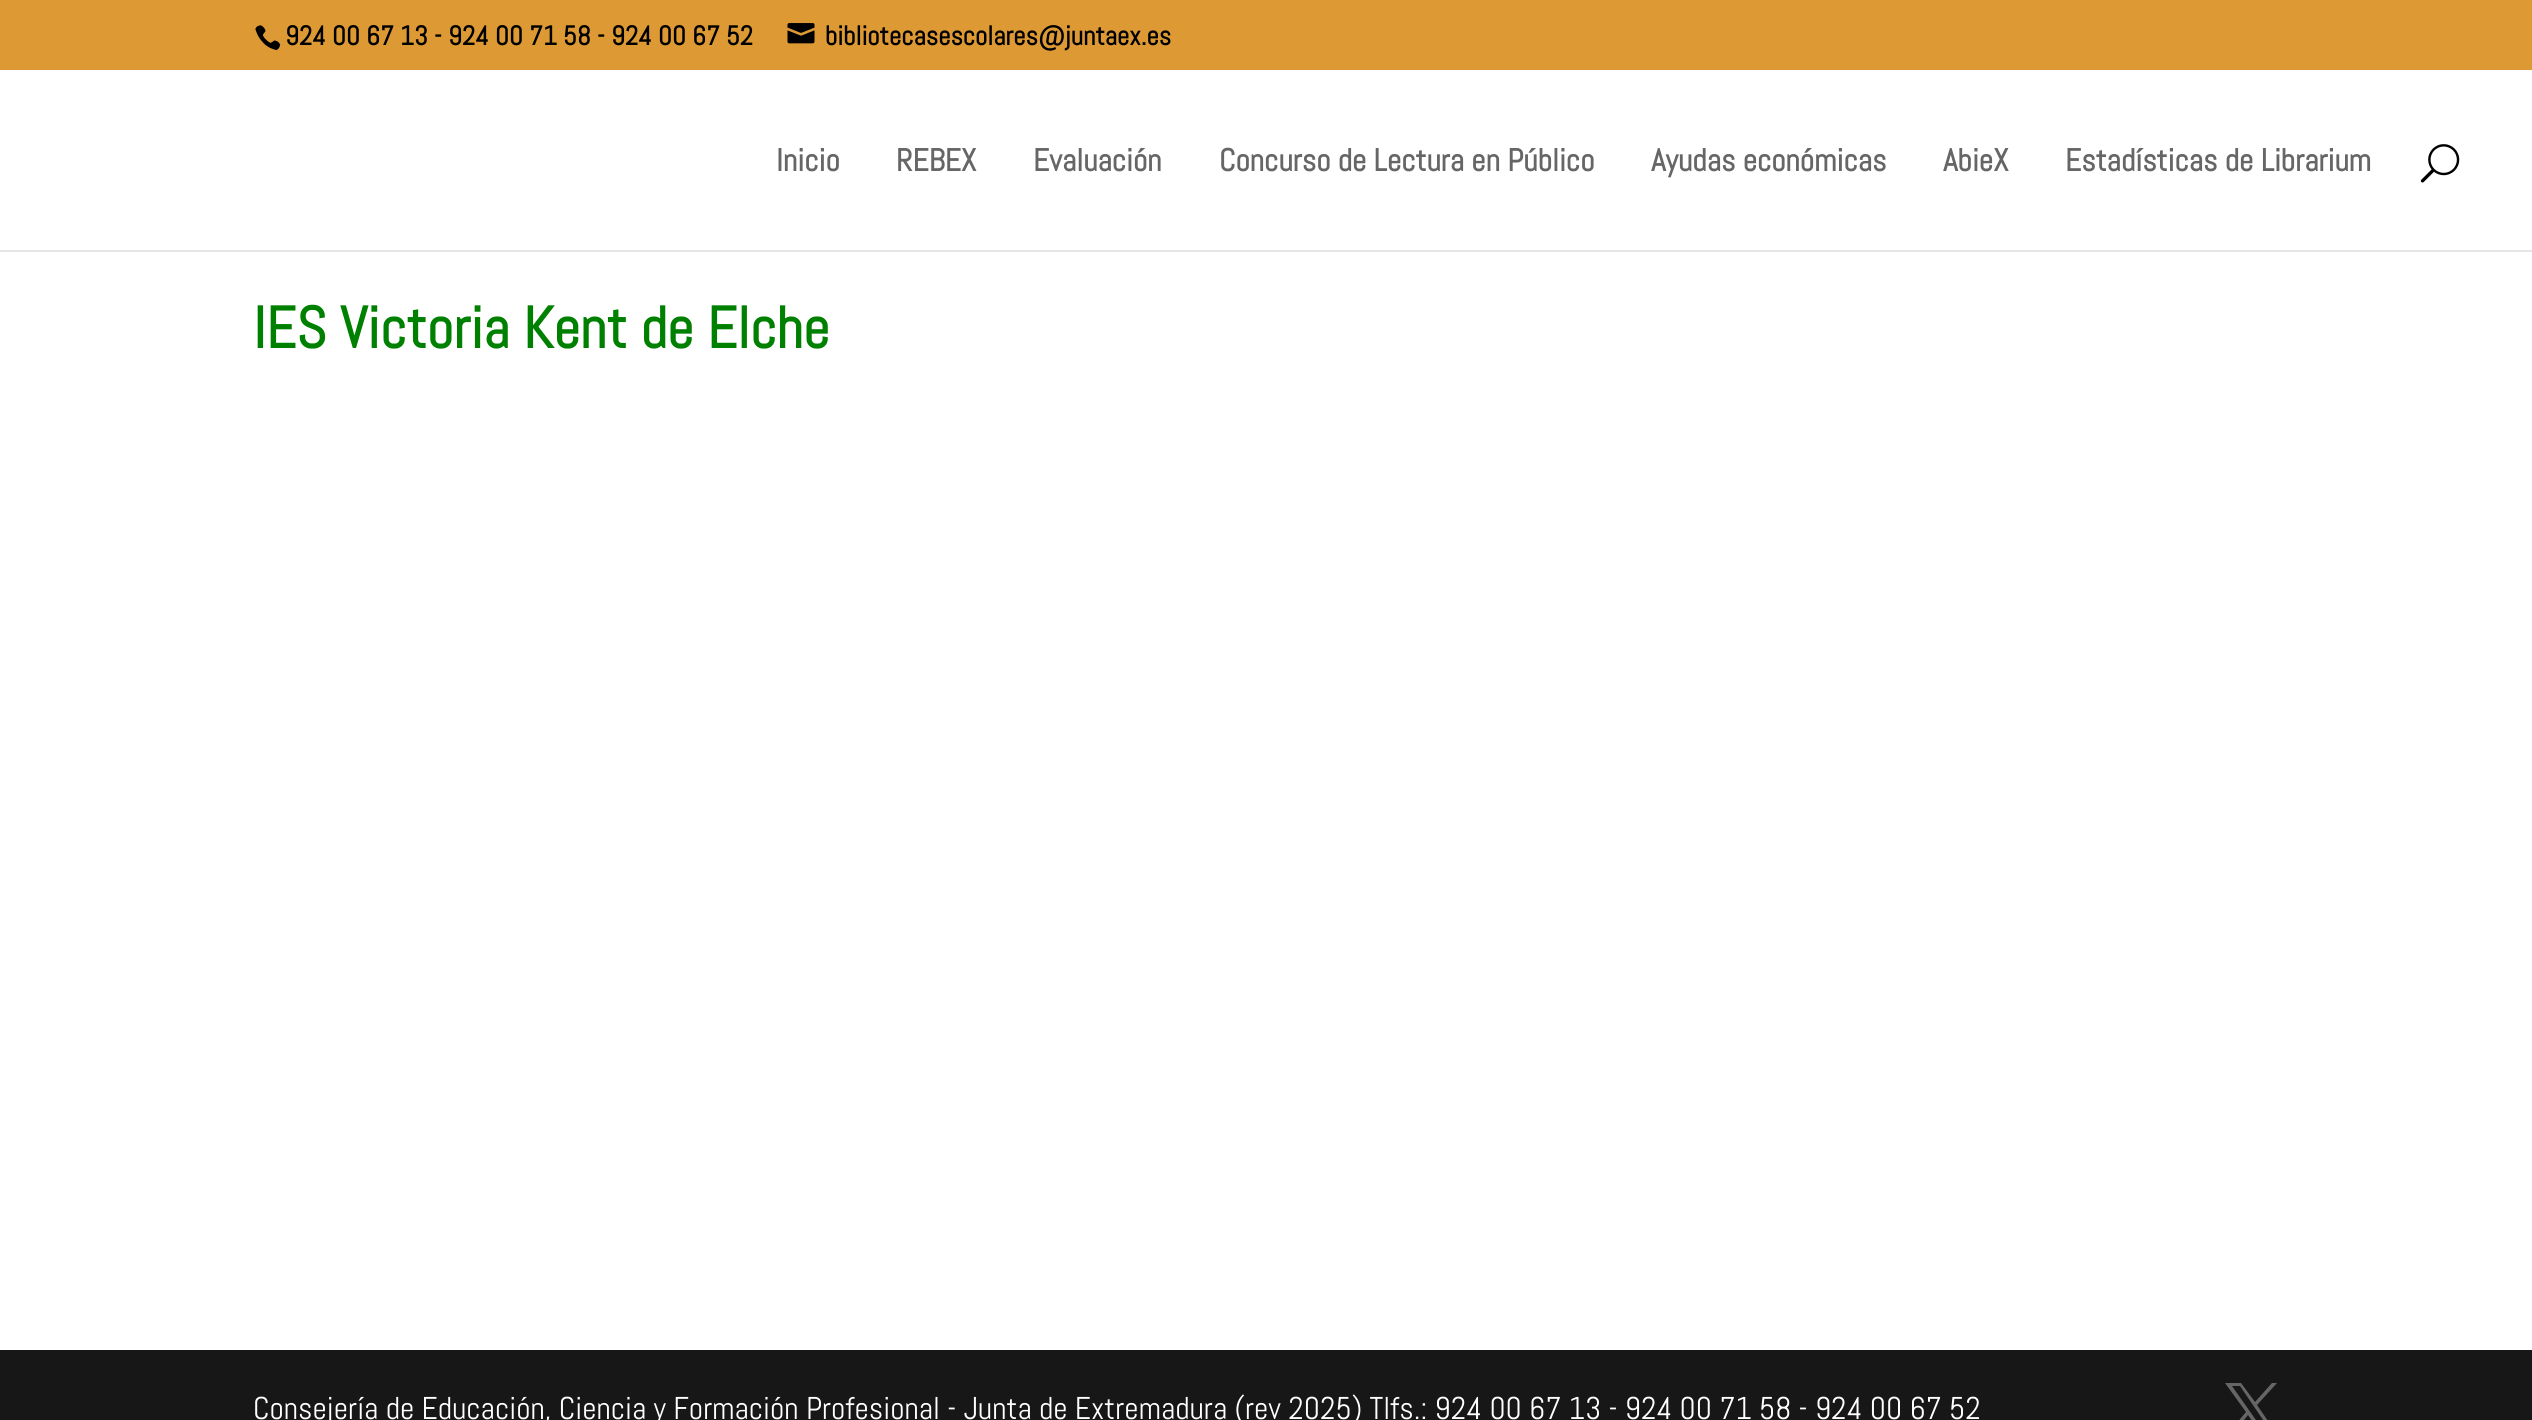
#include <cairo.h>
#include <math.h>
#include <stddef.h>

typedef struct { const char *family; double size; int italic, bold; unsigned color; } style_t;
static cairo_t *ctx;

static void ink(unsigned color) {
    cairo_set_source_rgb(ctx, (color >> 16) / 255.0, (color >> 8 & 255) / 255.0, (color & 255) / 255.0);
}

static void write(double x, double y, const char *s, const style_t *st) {
    cairo_select_font_face(ctx, st->family, st->italic ? CAIRO_FONT_SLANT_ITALIC : CAIRO_FONT_SLANT_NORMAL,
        st->bold ? CAIRO_FONT_WEIGHT_BOLD : CAIRO_FONT_WEIGHT_NORMAL);
    cairo_set_font_size(ctx, st->size);
    ink(st->color);
    cairo_move_to(ctx, x, y);
    cairo_show_text(ctx, s);
}

static void block(double x, double y, double w, double h, unsigned color) {
    ink(color);
    cairo_rectangle(ctx, x, y, w, h);
    cairo_fill(ctx);
}

static void paste(const char *path, double x, double y, double w, double h) {
    cairo_surface_t *image = cairo_image_surface_create_from_png(path);
    cairo_save(ctx);
    cairo_set_source_surface(ctx, image, x, y);
    cairo_rectangle(ctx, x, y, w, h);
    cairo_fill(ctx);
    cairo_restore(ctx);
    cairo_surface_destroy(image);
}

static const style_t s1 = {"Abel", 27, 0, 1, 0x000000};
static const style_t s2 = {"Abel", 31.5, 0, 1, 0x666666};
static const style_t s3 = {"Abel", 58.5, 0, 1, 0x008000};
static const style_t s4 = {"Abel", 31.5, 0, 0, 0xffffff};

int main(void) {
    cairo_surface_t *surface = cairo_image_surface_create(CAIRO_FORMAT_RGB24, 2532, 1420);
    ctx = cairo_create(surface);
    cairo_font_options_t *options = cairo_font_options_create();
    cairo_font_options_set_hint_metrics(options, CAIRO_HINT_METRICS_OFF);
    cairo_font_options_set_hint_style(options, CAIRO_HINT_STYLE_NONE);
    cairo_set_font_options(ctx, options);
    cairo_set_miter_limit(ctx, 4);
    ink(0x171717);
    cairo_paint(ctx);
    block(0, 0, 2532, 70, 0xdd9933);
    paste("pic1.png", 255, 25, 26, 26);
    write(285, 45, "924 00 67 13 - 924 00 71 58 - 924 00 67 52", &s1);
    paste("pic2.png", 787, 23, 28, 21);
    write(825, 45, "bibliotecasescolares@juntaex.es", &s1);
    ink(0xe6e6e6);
    cairo_new_path(ctx);
    cairo_move_to(ctx, 0, 250);
    cairo_line_to(ctx, 0, 252);
    cairo_line_to(ctx, 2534, 252);
    cairo_line_to(ctx, 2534, 72);
    cairo_line_to(ctx, 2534, 250);
    cairo_close_path(ctx);
    cairo_fill(ctx);
    block(0, 70, 2532, 180, 0xffffff);
    write(776, 171, "Inicio", &s2);
    write(896, 171, "REBEX", &s2);
    write(1033, 171, "Evaluación", &s2);
    write(1219, 171, "Concurso de Lectura en Público", &s2);
    write(1651, 171, "Ayudas económicas", &s2);
    write(1943, 171, "AbieX", &s2);
    write(2065, 171, "Estadísticas de Librarium", &s2);
    paste("pic3.png", 2420, 144, 40, 39);
    block(0, 252, 2532, 1098, 0xffffff);
    write(253, 348, "IES Victoria Kent de Elche", &s3);
    write(253, 1419, "Consejería de Educación, Ciencia y Formación Profesional - Junta de Extremadura (rev 2025) Tlfs.: 924 00 67 13 - 924 00 71 58 - 924 00 67 52", &s4);
    ink(0x666666);
    cairo_new_path(ctx);
    cairo_move_to(ctx, 2225, 1383);
    cairo_line_to(ctx, 2246, 1412);
    cairo_line_to(ctx, 2225, 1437);
    cairo_line_to(ctx, 2230, 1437);
    cairo_line_to(ctx, 2248, 1415);
    cairo_line_to(ctx, 2263, 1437);
    cairo_line_to(ctx, 2279, 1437);
    cairo_line_to(ctx, 2257, 1405);
    cairo_line_to(ctx, 2277, 1383);
    cairo_line_to(ctx, 2272, 1383);
    cairo_line_to(ctx, 2255, 1402);
    cairo_line_to(ctx, 2241, 1383);
    cairo_close_path(ctx);
    cairo_move_to(ctx, 2232, 1386);
    cairo_line_to(ctx, 2240, 1386);
    cairo_line_to(ctx, 2272, 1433);
    cairo_line_to(ctx, 2265, 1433);
    cairo_close_path(ctx);
    cairo_fill(ctx);
    cairo_surface_write_to_png(surface, "screenshot.png");
    cairo_font_options_destroy(options);
    cairo_destroy(ctx);
    cairo_surface_destroy(surface);
    return 0;
}
